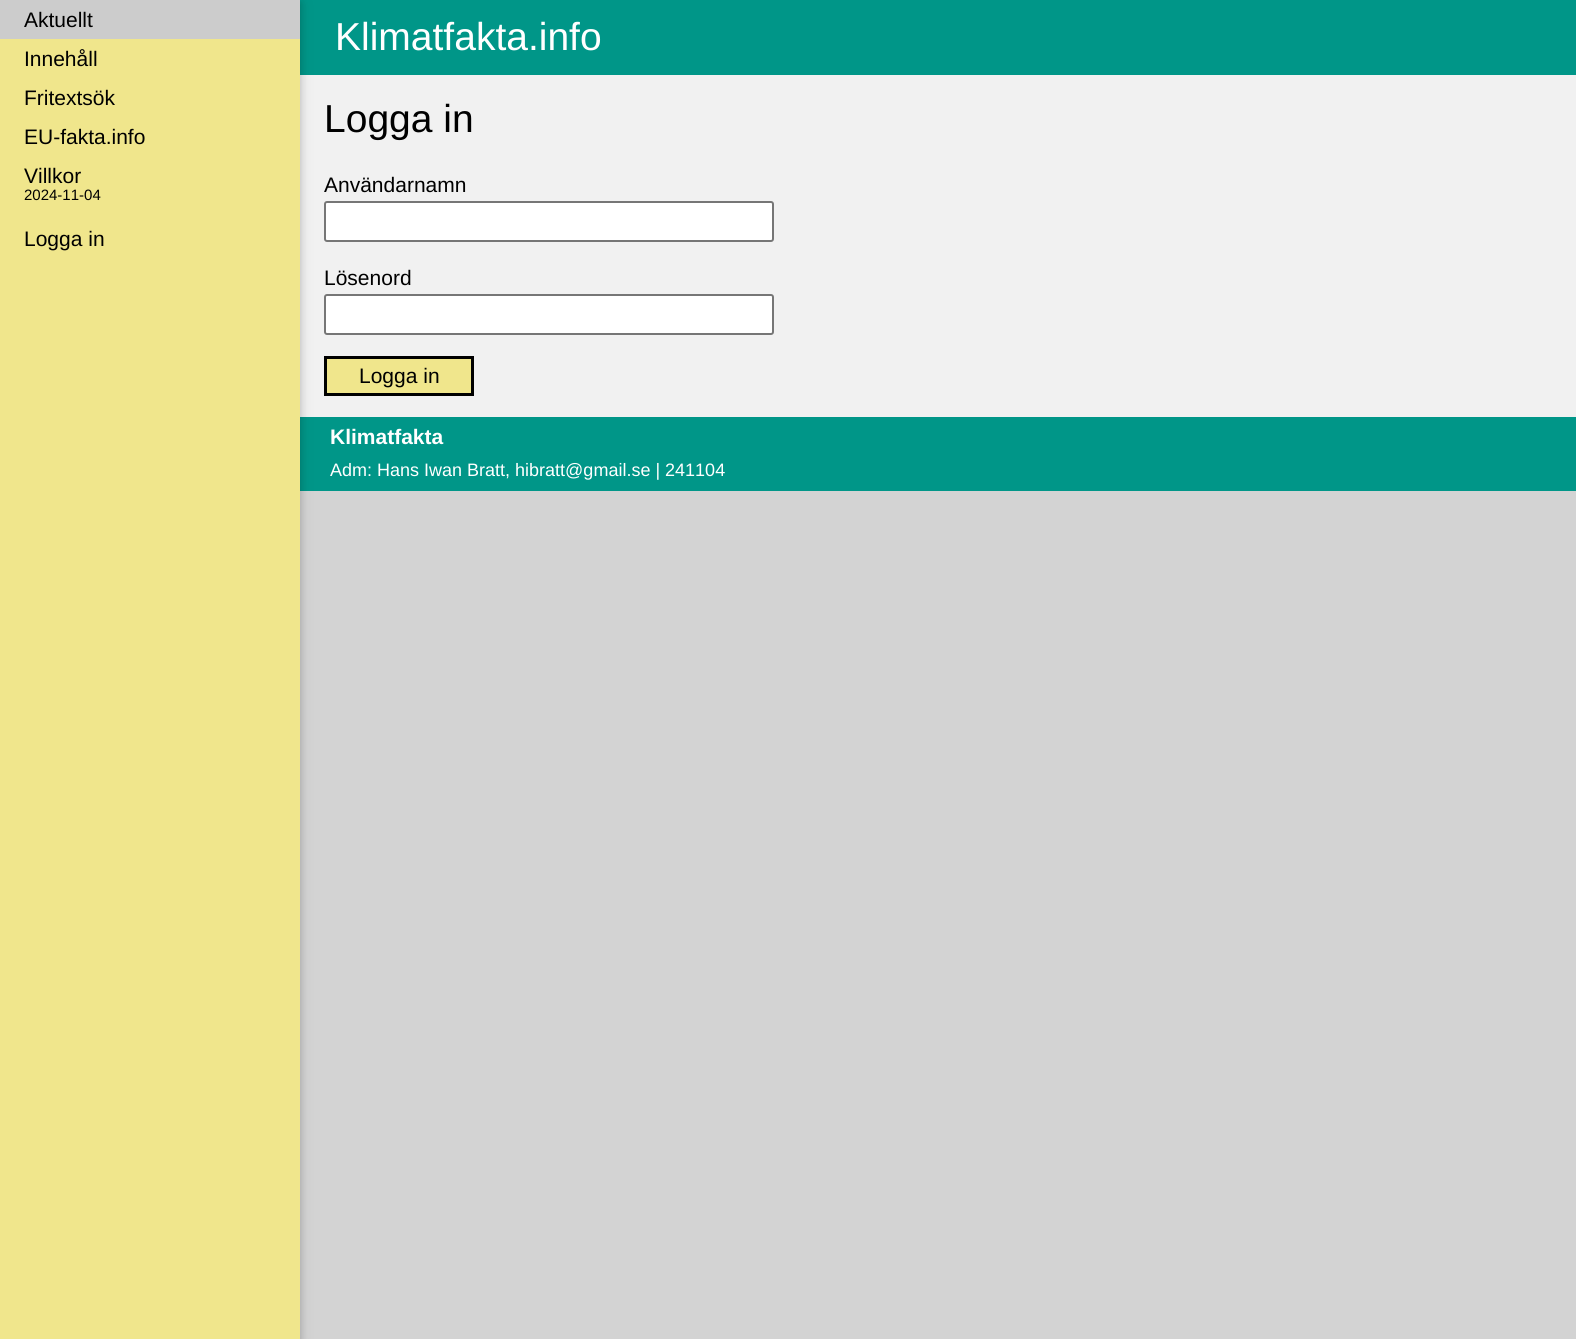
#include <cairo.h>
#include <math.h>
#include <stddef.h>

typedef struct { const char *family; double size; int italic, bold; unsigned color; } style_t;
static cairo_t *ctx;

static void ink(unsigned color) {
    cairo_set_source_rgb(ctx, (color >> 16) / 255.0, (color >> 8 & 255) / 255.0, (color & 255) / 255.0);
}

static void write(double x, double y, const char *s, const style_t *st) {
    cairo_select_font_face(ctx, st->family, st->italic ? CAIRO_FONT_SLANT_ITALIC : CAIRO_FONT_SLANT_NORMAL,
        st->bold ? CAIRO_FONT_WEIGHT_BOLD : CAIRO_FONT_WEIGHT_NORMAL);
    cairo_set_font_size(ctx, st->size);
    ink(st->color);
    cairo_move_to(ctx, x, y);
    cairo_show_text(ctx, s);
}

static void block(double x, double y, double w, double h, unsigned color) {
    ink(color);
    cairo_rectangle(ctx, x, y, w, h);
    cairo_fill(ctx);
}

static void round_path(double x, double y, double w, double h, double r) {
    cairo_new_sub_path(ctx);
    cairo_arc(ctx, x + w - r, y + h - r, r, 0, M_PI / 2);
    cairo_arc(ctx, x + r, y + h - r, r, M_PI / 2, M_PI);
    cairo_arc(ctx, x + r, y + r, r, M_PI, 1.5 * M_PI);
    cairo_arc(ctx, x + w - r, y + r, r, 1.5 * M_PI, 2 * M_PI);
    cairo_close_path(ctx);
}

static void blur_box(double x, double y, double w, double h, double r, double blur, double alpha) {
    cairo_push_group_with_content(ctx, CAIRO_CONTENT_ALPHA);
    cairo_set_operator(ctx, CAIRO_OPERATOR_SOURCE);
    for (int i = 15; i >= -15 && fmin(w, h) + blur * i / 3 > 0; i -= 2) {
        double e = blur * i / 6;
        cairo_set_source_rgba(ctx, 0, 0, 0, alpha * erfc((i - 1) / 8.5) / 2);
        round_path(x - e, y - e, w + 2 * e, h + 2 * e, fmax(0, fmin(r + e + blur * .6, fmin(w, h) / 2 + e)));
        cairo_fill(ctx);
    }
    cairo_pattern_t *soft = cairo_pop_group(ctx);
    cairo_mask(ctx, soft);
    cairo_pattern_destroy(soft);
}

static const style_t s1 = {"Liberation Sans", 21, 0, 0, 0x000000};
static const style_t s2 = {"Liberation Sans", 15, 0, 0, 0x000000};
static const style_t s3 = {"Liberation Sans", 39, 0, 0, 0xffffff};
static const style_t s4 = {"Liberation Sans", 39, 0, 0, 0x000000};
static const style_t s5 = {"Liberation Sans", 21, 0, 1, 0xffffff};
static const style_t s6 = {"Liberation Sans", 18, 0, 0, 0xffffff};

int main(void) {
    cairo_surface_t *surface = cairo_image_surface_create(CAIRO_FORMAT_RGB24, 1576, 1339);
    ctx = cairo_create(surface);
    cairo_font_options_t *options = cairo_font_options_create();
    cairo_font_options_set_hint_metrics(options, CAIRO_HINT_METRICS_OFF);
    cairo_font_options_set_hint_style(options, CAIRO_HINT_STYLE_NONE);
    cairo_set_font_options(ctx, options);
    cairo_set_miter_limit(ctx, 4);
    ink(0xd3d3d3);
    cairo_paint(ctx);
    block(300, 75, 1276, 342, 0xf1f1f1);
    block(300, 0, 1276, 75, 0x009688);
    block(300, 417, 1276, 74, 0x009688);
    ink(0x000000);
    blur_box(0, 3, 300, 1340, 0, 7.5, 0.12);
    blur_box(0, 3, 300, 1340, 0, 4, 0.16);
    block(0, 39, 300, 1300, 0xf0e68c);
    block(0, 0, 300, 39, 0xcccccc);
    write(24, 27, "Aktuellt", &s1);
    write(24, 66, "Innehåll", &s1);
    write(24, 105, "Fritextsök", &s1);
    write(24, 144, "EU-fakta.info", &s1);
    write(24, 183, "Villkor", &s1);
    write(24, 200, "2024-11-04", &s2);
    write(24, 246, "Logga in", &s1);
    write(335, 50, "Klimatfakta.info", &s3);
    write(324, 132, "Logga in", &s4);
    write(324, 192, "Användarnamn", &s1);
    ink(0xffffff);
    round_path(325, 202, 448, 39, 2);
    cairo_fill_preserve(ctx);
    ink(0x767676);
    cairo_stroke(ctx);
    write(324, 285, "Lösenord", &s1);
    ink(0xffffff);
    round_path(325, 295, 448, 39, 2);
    cairo_fill_preserve(ctx);
    ink(0x767676);
    cairo_stroke(ctx);
    ink(0xf0e68c);
    cairo_rectangle(ctx, 325.5, 357.5, 147, 37);
    cairo_fill_preserve(ctx);
    ink(0x000000);
    cairo_set_line_width(ctx, 3);
    cairo_stroke(ctx);
    write(359, 383, "Logga in", &s1);
    write(330, 444, "Klimatfakta", &s5);
    write(330, 476, "Adm: Hans Iwan Bratt, hibratt@gmail.se | 241104", &s6);
    cairo_surface_write_to_png(surface, "screenshot.png");
    cairo_font_options_destroy(options);
    cairo_destroy(ctx);
    cairo_surface_destroy(surface);
    return 0;
}
